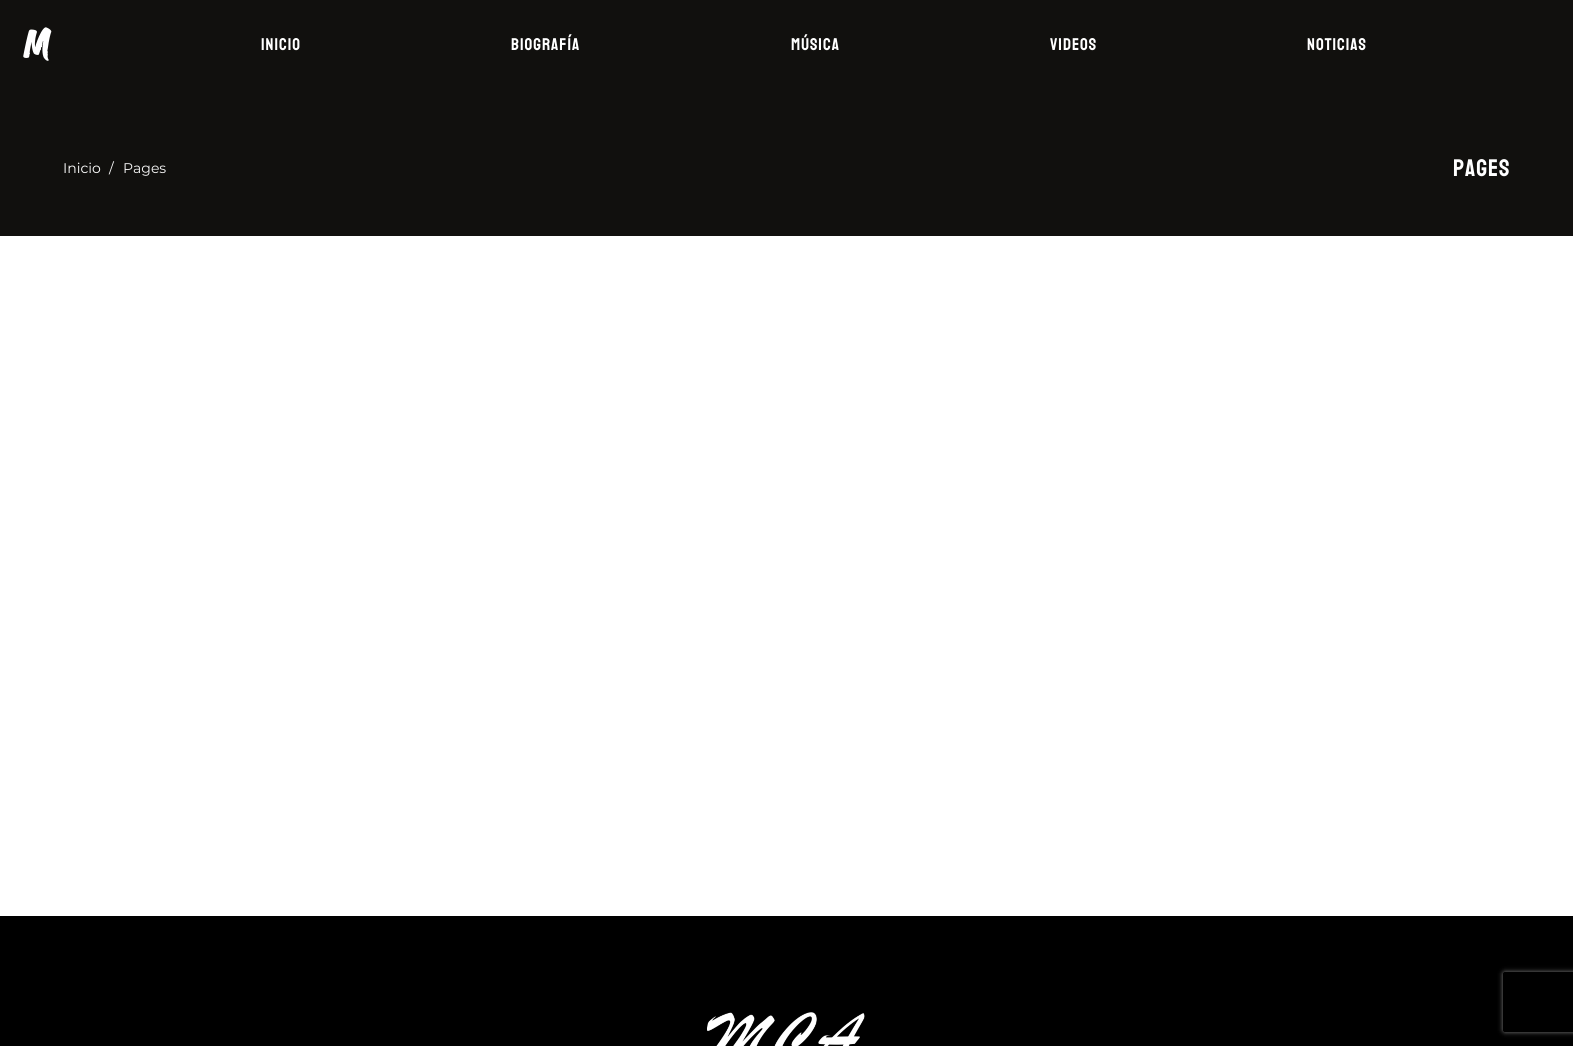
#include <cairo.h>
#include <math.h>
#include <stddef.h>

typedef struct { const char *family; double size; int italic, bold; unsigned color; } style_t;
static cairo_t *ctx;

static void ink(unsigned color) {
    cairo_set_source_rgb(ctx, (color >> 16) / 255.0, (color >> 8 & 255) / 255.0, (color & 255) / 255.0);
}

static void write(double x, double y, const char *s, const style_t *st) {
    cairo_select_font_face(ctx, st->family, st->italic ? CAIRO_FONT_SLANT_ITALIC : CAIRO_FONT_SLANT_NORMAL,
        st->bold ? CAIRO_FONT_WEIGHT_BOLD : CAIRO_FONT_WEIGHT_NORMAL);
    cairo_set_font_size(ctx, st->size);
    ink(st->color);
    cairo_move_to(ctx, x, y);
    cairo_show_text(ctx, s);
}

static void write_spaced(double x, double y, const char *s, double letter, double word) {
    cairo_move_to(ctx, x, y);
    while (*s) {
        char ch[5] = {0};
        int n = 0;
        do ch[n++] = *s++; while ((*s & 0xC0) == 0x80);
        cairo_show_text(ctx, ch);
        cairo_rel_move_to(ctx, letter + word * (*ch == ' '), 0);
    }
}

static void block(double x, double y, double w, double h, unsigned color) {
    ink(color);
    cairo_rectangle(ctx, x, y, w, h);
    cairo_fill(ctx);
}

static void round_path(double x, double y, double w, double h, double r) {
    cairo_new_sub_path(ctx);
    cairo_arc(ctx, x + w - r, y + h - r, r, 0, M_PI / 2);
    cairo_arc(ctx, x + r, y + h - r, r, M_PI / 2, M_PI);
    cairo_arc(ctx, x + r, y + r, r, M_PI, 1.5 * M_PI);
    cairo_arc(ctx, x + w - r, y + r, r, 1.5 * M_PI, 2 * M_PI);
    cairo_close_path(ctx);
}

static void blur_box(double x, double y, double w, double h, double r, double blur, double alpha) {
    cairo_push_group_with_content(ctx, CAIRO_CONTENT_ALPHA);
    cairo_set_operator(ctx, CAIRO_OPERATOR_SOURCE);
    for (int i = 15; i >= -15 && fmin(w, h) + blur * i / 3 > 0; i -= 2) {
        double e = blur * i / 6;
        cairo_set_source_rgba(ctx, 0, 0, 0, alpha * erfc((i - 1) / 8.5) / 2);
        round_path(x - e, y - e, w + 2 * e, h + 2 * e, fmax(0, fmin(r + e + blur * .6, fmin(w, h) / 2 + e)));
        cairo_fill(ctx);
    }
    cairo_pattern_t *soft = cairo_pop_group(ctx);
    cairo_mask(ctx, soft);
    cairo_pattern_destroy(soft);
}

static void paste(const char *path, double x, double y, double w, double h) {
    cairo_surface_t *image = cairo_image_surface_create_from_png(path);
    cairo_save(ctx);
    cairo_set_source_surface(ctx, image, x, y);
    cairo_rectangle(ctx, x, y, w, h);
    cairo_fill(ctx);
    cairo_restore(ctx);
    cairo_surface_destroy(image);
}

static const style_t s1 = {"Montserrat", 14, 0, 0, 0xffffff};
static const style_t s2 = {"Montserrat", 14, 0, 0, 0xf7f7f7};

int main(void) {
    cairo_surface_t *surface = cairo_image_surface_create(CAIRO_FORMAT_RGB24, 1573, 1046);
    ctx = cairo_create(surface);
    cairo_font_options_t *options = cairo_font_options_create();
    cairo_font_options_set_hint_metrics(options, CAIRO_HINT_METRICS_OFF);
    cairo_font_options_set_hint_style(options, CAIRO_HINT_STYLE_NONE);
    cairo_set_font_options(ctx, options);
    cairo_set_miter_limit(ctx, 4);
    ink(0xffffff);
    cairo_paint(ctx);
    block(0, 0, 1573, 236, 0x11100e);
    cairo_select_font_face(ctx, "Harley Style", CAIRO_FONT_SLANT_NORMAL, CAIRO_FONT_WEIGHT_BOLD);
    cairo_set_font_size(ctx, 40);
    ink(0xffffff);
    write_spaced(23, 53, "M", 1, 0);
    cairo_select_font_face(ctx, "Staatliches", CAIRO_FONT_SLANT_NORMAL, CAIRO_FONT_WEIGHT_NORMAL);
    cairo_set_font_size(ctx, 17);
    write_spaced(261, 50, "INICIO", 1, 0);
    write_spaced(511, 50, "BIOGRAFÍA", 1, 0);
    write_spaced(791, 50, "MÚSICA", 1, 0);
    write_spaced(1050, 50, "VIDEOS", 1, 0);
    write_spaced(1307, 50, "NOTICIAS", 1, 0);
    write(63, 173, "Inicio", &s1);
    write(109, 173, "/", &s2);
    write(123, 173, "Pages", &s2);
    cairo_select_font_face(ctx, "Staatliches", CAIRO_FONT_SLANT_NORMAL, CAIRO_FONT_WEIGHT_NORMAL);
    cairo_set_font_size(ctx, 24);
    ink(0xffffff);
    write_spaced(1453, 176, "PAGES", 1, 0);
    block(0, 916, 1573, 130, 0x000000);
    paste("pic1.png", 707, 1012, 158, 34);
    cairo_save(ctx);
    cairo_set_fill_rule(ctx, CAIRO_FILL_RULE_EVEN_ODD);
    cairo_new_path(ctx);
    cairo_move_to(ctx, 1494, 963);
    cairo_line_to(ctx, 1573, 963);
    cairo_line_to(ctx, 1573, 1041);
    cairo_line_to(ctx, 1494, 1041);
    cairo_close_path(ctx);
    cairo_move_to(ctx, 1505, 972);
    cairo_line_to(ctx, 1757, 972);
    cairo_curve_to(ctx, 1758, 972, 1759, 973, 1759, 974);
    cairo_line_to(ctx, 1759, 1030);
    cairo_curve_to(ctx, 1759, 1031, 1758, 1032, 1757, 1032);
    cairo_line_to(ctx, 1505, 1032);
    cairo_curve_to(ctx, 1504, 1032, 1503, 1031, 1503, 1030);
    cairo_line_to(ctx, 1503, 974);
    cairo_curve_to(ctx, 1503, 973, 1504, 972, 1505, 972);
    cairo_close_path(ctx);
    cairo_clip(ctx);
    ink(0x808080);
    blur_box(1503, 972, 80, 60, 2, 2.5, 1);
    cairo_restore(ctx);
    cairo_surface_write_to_png(surface, "screenshot.png");
    cairo_font_options_destroy(options);
    cairo_destroy(ctx);
    cairo_surface_destroy(surface);
    return 0;
}
